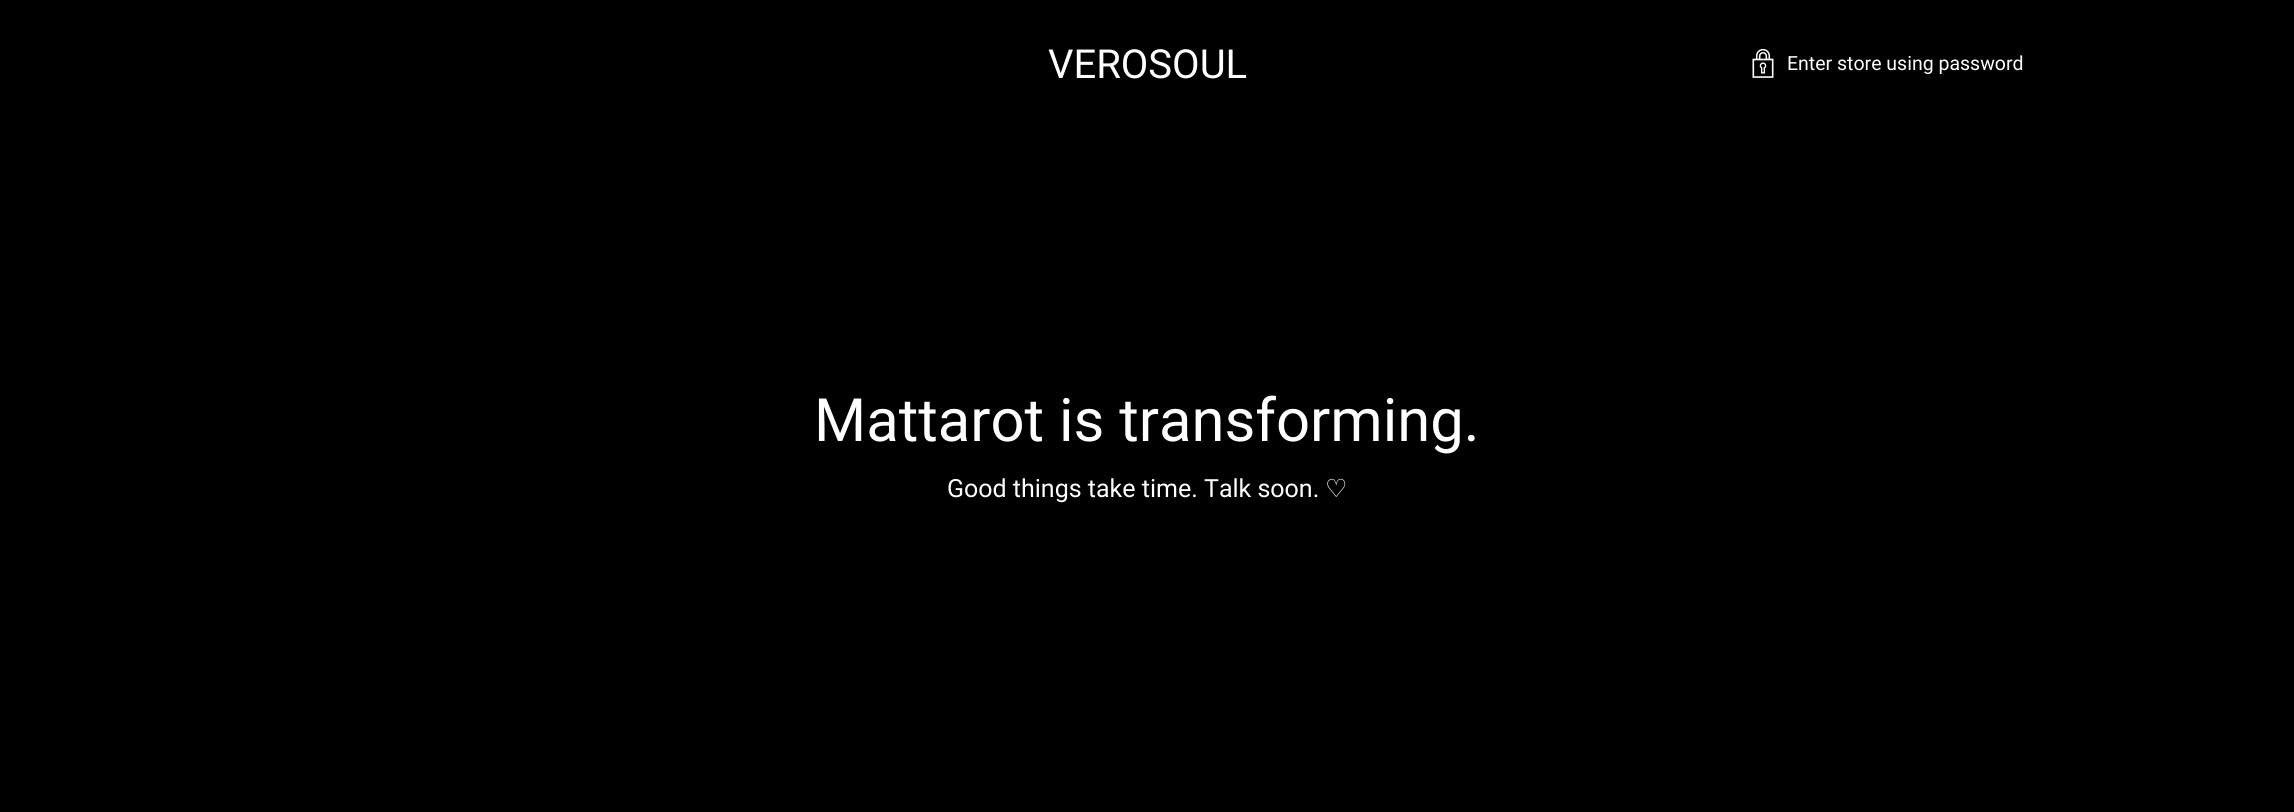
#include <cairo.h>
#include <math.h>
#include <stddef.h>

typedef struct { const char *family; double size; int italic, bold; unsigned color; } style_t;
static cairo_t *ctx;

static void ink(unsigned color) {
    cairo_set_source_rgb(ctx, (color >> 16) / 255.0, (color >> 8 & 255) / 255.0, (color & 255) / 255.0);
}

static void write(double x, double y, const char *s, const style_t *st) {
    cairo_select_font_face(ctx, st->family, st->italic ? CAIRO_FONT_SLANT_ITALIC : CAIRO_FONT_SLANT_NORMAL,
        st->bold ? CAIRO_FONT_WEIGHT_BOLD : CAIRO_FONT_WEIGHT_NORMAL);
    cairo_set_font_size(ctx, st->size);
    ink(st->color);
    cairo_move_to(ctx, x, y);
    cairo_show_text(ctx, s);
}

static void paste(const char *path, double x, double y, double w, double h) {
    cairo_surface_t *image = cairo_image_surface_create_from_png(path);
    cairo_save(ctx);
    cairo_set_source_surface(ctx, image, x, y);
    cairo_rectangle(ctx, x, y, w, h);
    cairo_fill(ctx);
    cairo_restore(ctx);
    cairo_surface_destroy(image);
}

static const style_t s1 = {"Roboto", 40, 0, 0, 0xffffff};
static const style_t s2 = {"Roboto", 19.5, 0, 0, 0xffffff};
static const style_t s3 = {"Roboto", 59.75, 0, 0, 0xffffff};
static const style_t s4 = {"Roboto", 25, 0, 0, 0xffffff};
static const style_t s5 = {"DejaVu Sans", 25, 0, 0, 0xffffff};

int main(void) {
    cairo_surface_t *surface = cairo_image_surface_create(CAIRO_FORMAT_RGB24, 2294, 812);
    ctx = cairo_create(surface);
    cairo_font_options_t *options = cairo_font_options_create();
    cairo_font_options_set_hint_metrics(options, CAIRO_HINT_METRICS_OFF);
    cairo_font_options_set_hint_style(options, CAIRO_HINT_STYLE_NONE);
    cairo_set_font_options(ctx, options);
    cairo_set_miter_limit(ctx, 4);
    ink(0x000000);
    cairo_paint(ctx);
    write(1048, 78, "VEROSOUL", &s1);
    paste("pic1.png", 1752, 49, 22, 29);
    write(1787, 70, "Enter store using password", &s2);
    write(814, 441, "Mattarot is transforming.", &s3);
    write(947, 497, "Good things take time. Talk soon.", &s4);
    write(1325, 497, "♡", &s5);
    cairo_surface_write_to_png(surface, "screenshot.png");
    cairo_font_options_destroy(options);
    cairo_destroy(ctx);
    cairo_surface_destroy(surface);
    return 0;
}
